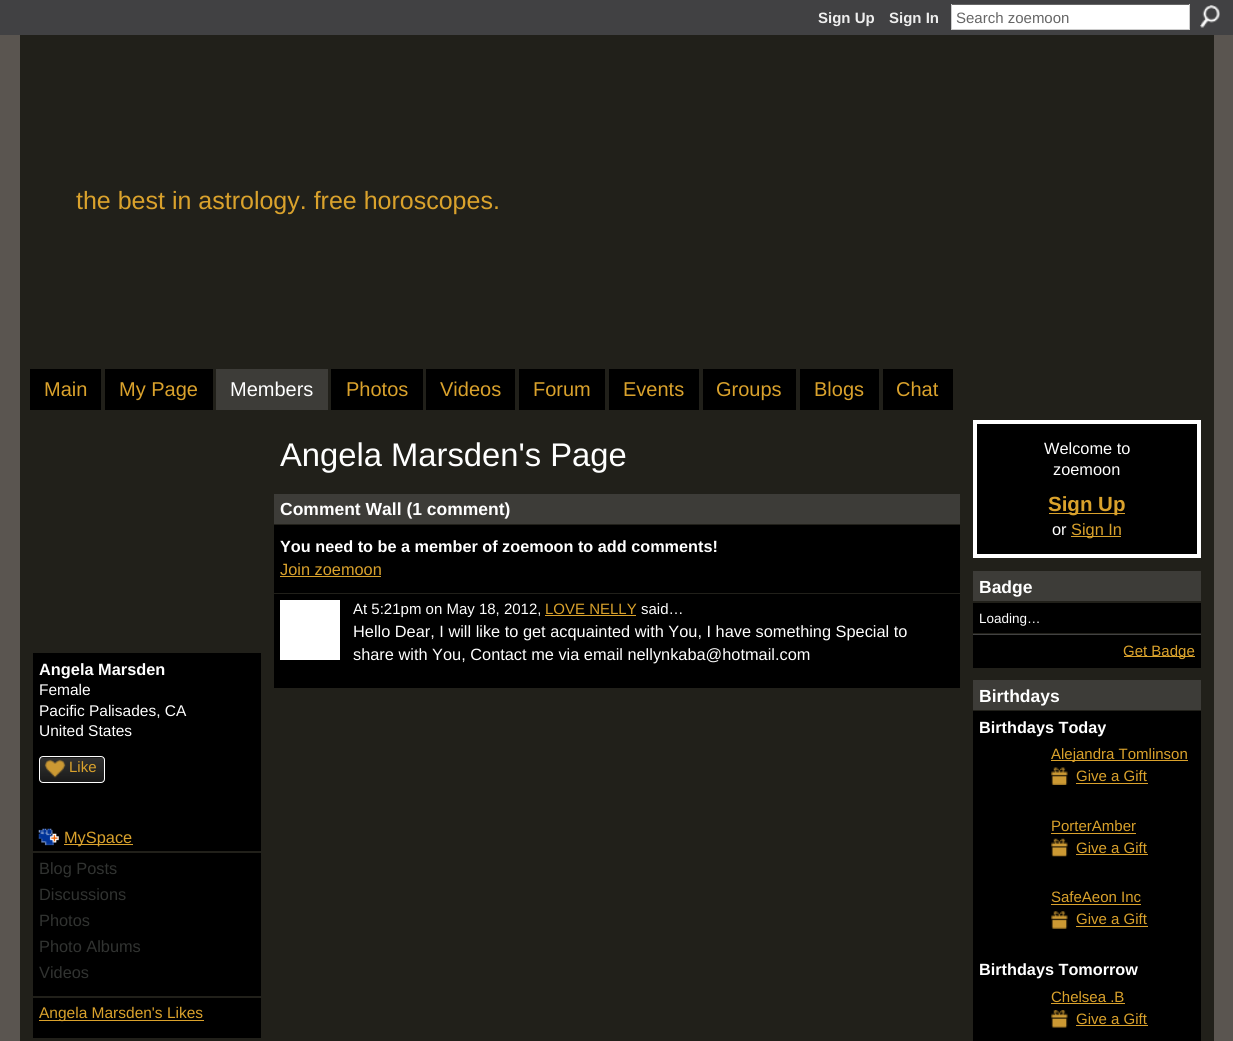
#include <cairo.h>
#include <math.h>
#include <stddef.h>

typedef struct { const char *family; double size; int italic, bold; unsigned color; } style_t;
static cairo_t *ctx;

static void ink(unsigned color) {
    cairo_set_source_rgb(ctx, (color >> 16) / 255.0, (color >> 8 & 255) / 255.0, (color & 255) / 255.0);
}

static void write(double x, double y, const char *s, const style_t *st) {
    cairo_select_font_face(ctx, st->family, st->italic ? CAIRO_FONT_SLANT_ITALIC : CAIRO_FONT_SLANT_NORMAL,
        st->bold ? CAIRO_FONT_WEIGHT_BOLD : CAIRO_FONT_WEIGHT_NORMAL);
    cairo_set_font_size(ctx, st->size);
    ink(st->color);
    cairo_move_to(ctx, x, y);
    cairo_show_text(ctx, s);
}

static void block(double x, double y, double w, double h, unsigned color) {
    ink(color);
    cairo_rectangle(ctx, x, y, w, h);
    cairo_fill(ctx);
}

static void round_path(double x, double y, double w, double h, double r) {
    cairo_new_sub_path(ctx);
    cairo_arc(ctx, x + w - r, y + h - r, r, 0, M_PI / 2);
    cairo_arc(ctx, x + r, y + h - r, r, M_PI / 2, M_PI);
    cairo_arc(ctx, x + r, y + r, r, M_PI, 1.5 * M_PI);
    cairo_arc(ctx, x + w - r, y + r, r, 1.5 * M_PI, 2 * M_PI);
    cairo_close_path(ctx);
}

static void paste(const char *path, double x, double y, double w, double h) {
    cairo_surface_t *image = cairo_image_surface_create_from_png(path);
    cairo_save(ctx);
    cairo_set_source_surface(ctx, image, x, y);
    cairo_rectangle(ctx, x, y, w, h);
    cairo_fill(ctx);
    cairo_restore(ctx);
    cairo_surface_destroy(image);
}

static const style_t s1 = {"Liberation Sans", 15, 0, 1, 0xeeeeee};
static const style_t s2 = {"Liberation Sans", 15, 0, 0, 0x666666};
static const style_t s3 = {"Liberation Sans", 25, 0, 0, 0xdaa22c};
static const style_t s4 = {"Liberation Sans", 20, 0, 0, 0xdaa22c};
static const style_t s5 = {"Liberation Sans", 20, 0, 0, 0xffffff};
static const style_t s6 = {"Liberation Sans", 32.75, 0, 0, 0xffffff};
static const style_t s7 = {"Liberation Sans", 17.5, 0, 1, 0xffffff};
static const style_t s8 = {"Liberation Sans", 16.25, 0, 1, 0xffffff};
static const style_t s9 = {"Liberation Sans", 16.35, 0, 0, 0xdaa22c};
static const style_t s10 = {"Liberation Sans", 15, 0, 0, 0xffffff};
static const style_t s11 = {"Liberation Sans", 15, 0, 0, 0xdaa22c};
static const style_t s12 = {"Liberation Sans", 16.35, 0, 0, 0xffffff};
static const style_t s13 = {"Liberation Sans", 16.35, 0, 1, 0xffffff};
static const style_t s14 = {"Liberation Sans", 15.5, 0, 0, 0xffffff};
static const style_t s15 = {"Liberation Sans", 16.35, 0, 0, 0x313331};
static const style_t s16 = {"Liberation Sans", 15.5, 0, 0, 0xdaa22c};
static const style_t s17 = {"Liberation Sans", 20.5, 0, 1, 0xdaa22c};
static const style_t s18 = {"Liberation Sans", 13.5, 0, 0, 0xffffff};

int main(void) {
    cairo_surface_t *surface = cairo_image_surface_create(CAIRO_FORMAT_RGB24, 1233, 1041);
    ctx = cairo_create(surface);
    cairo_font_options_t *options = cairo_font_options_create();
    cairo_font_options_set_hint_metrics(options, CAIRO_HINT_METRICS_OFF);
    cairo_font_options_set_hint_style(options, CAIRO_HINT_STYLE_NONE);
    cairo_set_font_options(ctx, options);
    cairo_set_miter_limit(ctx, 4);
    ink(0x5a5550);
    cairo_paint(ctx);
    block(0, 0, 1233, 35, 0x414143);
    write(818, 23, "Sign Up", &s1);
    write(889, 23, "Sign In", &s1);
    block(952, 5, 237, 24, 0xffffff);
    block(951, 4, 239, 1, 0x666666);
    block(1189, 4, 1, 26, 0xcccccc);
    block(951, 29, 239, 1, 0xcccccc);
    block(951, 4, 1, 26, 0xcccccc);
    write(956, 23, "Search zoemoon", &s2);
    paste("pic1.png", 1200, 5, 20, 23);
    block(20, 35, 1194, 1006, 0x21201a);
    write(76, 209, "the best in astrology. free horoscopes.", &s3);
    block(30, 369, 71, 41, 0x000000);
    write(44, 396, "Main", &s4);
    block(105, 369, 108, 41, 0x000000);
    write(119, 396, "My Page", &s4);
    block(216, 369, 112, 41, 0x3d3c38);
    write(230, 396, "Members", &s5);
    block(331, 369, 92, 41, 0x000000);
    write(346, 396, "Photos", &s4);
    block(426, 369, 89, 41, 0x000000);
    write(440, 396, "Videos", &s4);
    block(519, 369, 86, 41, 0x000000);
    write(533, 396, "Forum", &s4);
    block(609, 369, 90, 41, 0x000000);
    write(623, 396, "Events", &s4);
    block(703, 369, 93, 41, 0x000000);
    write(716, 396, "Groups", &s4);
    block(800, 369, 79, 41, 0x000000);
    write(814, 396, "Blogs", &s4);
    block(883, 369, 70, 41, 0x000000);
    write(896, 396, "Chat", &s4);
    write(280, 466, "Angela Marsden's Page", &s6);
    block(274, 494, 686, 30, 0x3d3c38);
    write(280, 515, "Comment Wall (1 comment)", &s7);
    block(274, 525, 686, 68, 0x000000);
    write(280, 552, "You need to be a member of zoemoon to add comments!", &s8);
    write(280, 575, "Join zoemoon", &s9);
    block(280, 576, 101, 1, 0xdaa22c);
    block(274, 594, 686, 94, 0x000000);
    write(353, 614, "At 5:21pm on May 18, 2012,", &s10);
    block(280, 600, 60, 60, 0xffffff);
    write(545, 614, "LOVE NELLY", &s11);
    block(545, 615, 91, 1, 0xdaa22c);
    write(641, 614, "said…", &s10);
    write(353, 637, "Hello Dear, I will like to get acquainted with You, I have something Special to", &s12);
    write(353, 660, "share with You, Contact me via email nellynkaba@hotmail.com", &s12);
    block(33, 653, 228, 198, 0x000000);
    write(39, 675, "Angela Marsden", &s13);
    write(39, 695, "Female", &s14);
    write(39, 716, "Pacific Palisades, CA", &s14);
    write(39, 736, "United States", &s14);
    paste("pic2.png", 39, 757, 66, 26);
    round_path(39.5, 756.5, 65, 26, 3.5);
    cairo_set_line_width(ctx, 1);
    cairo_stroke(ctx);
    paste("pic3.png", 44, 759, 22, 19);
    write(69, 772, "Like", &s11);
    paste("pic4.png", 38, 828, 21, 18);
    block(64, 844, 69, 1, 0xdaa22c);
    write(64, 843, "MySpace", &s9);
    block(33, 853, 228, 143, 0x000000);
    write(39, 874, "Blog Posts", &s15);
    write(39, 900, "Discussions", &s15);
    write(39, 926, "Photos", &s15);
    write(39, 952, "Photo Albums", &s15);
    write(39, 978, "Videos", &s15);
    block(33, 998, 228, 40, 0x000000);
    block(39, 1020, 165, 1, 0xdaa22c);
    write(39, 1018, "Angela Marsden's Likes", &s16);
    ink(0x000000);
    cairo_rectangle(ctx, 975, 422, 224, 134);
    cairo_fill_preserve(ctx);
    ink(0xffffff);
    cairo_set_line_width(ctx, 4);
    cairo_stroke(ctx);
    write(1044, 454, "Welcome to", &s12);
    write(1053, 475, "zoemoon", &s12);
    block(1049, 513, 76, 1, 0xdaa22c);
    write(1048, 511, "Sign Up", &s17);
    write(1052, 535, "or", &s12);
    block(1071, 536, 50, 1, 0xdaa22c);
    write(1071, 535, "Sign In", &s9);
    block(973, 571, 228, 30, 0x3d3c38);
    write(979, 593, "Badge", &s7);
    block(973, 603, 228, 30, 0x000000);
    write(979, 623, "Loading…", &s18);
    block(973, 635, 228, 33, 0x000000);
    block(973, 634, 228, 1, 0x424242);
    block(1124, 656, 71, 1, 0xdaa22c);
    write(1123, 656, "Get Badge", &s11);
    block(973, 680, 228, 30, 0x3d3c38);
    write(979, 702, "Birthdays", &s7);
    block(973, 711, 228, 330, 0x000000);
    write(979, 733, "Birthdays Today", &s8);
    block(1051, 760, 137, 1, 0xdaa22c);
    write(1051, 759, "Alejandra Tomlinson", &s11);
    paste("pic5.png", 1051, 767, 17, 18);
    write(1076, 781, "Give a Gift", &s11);
    block(1076, 783, 72, 1, 0xdaa22c);
    write(1051, 831, "PorterAmber", &s11);
    block(1051, 833, 85, 1, 0xdaa22c);
    paste("pic6.png", 1051, 838, 17, 19);
    write(1076, 853, "Give a Gift", &s11);
    block(1076, 854, 72, 1, 0xdaa22c);
    write(1051, 902, "SafeAeon Inc", &s11);
    block(1051, 904, 90, 1, 0xdaa22c);
    paste("pic7.png", 1051, 911, 17, 18);
    write(1076, 924, "Give a Gift", &s11);
    block(1076, 926, 72, 1, 0xdaa22c);
    write(979, 975, "Birthdays Tomorrow", &s8);
    write(1051, 1002, "Chelsea .B", &s11);
    block(1051, 1003, 74, 1, 0xdaa22c);
    paste("pic8.png", 1051, 1010, 17, 18);
    write(1076, 1024, "Give a Gift", &s11);
    block(1076, 1025, 72, 1, 0xdaa22c);
    cairo_surface_write_to_png(surface, "screenshot.png");
    cairo_font_options_destroy(options);
    cairo_destroy(ctx);
    cairo_surface_destroy(surface);
    return 0;
}
